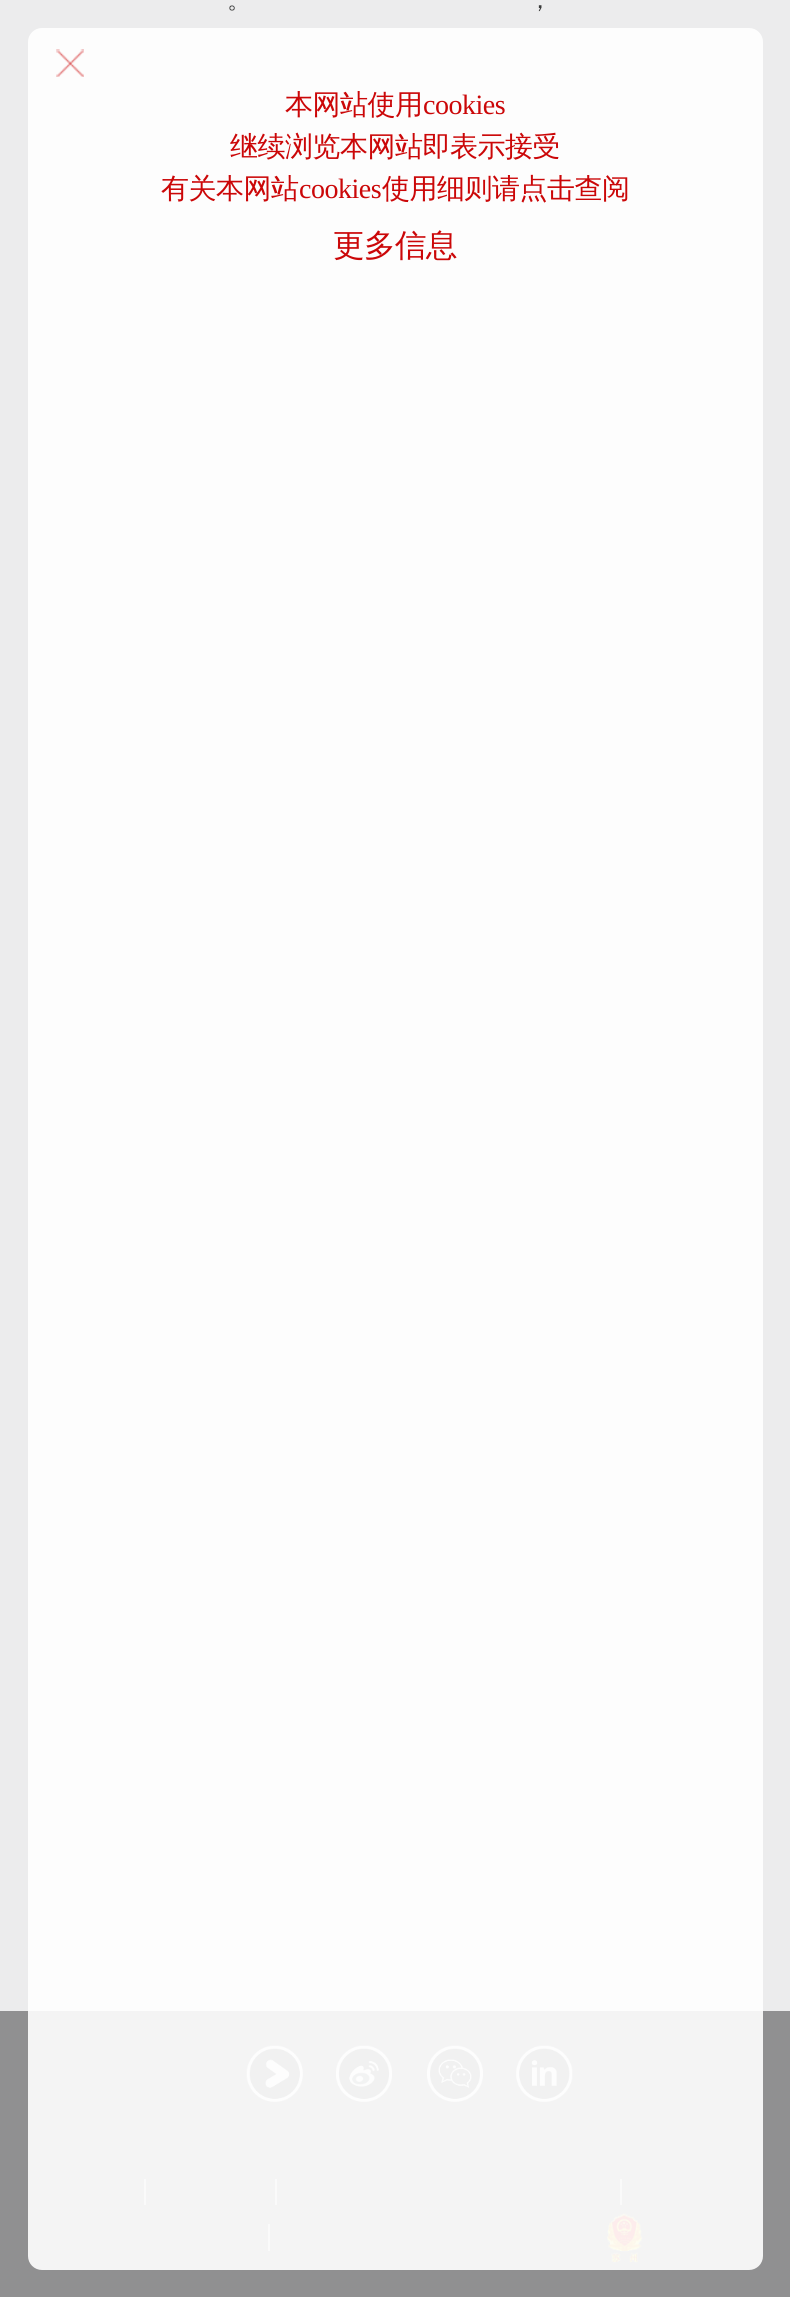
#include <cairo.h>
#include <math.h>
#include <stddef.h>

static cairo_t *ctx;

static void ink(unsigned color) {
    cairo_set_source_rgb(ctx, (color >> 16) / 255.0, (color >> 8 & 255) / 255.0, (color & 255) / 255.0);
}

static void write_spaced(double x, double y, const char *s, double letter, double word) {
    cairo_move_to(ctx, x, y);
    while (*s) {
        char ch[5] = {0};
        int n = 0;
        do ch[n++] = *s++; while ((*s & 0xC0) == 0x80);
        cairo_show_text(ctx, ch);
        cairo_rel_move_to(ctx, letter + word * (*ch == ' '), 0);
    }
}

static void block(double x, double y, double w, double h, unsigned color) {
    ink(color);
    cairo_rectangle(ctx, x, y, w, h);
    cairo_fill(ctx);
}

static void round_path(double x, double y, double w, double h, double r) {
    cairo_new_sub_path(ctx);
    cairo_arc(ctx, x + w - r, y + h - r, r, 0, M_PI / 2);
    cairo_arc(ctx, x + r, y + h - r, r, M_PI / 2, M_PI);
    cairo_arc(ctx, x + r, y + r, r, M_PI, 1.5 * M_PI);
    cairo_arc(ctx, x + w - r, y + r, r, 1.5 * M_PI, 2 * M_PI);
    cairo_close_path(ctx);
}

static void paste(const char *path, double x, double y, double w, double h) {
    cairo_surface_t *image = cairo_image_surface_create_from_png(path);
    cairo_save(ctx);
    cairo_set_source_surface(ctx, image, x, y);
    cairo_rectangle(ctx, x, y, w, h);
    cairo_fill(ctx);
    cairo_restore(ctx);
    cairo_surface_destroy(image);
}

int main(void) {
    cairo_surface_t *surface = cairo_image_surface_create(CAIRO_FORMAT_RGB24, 790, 2297);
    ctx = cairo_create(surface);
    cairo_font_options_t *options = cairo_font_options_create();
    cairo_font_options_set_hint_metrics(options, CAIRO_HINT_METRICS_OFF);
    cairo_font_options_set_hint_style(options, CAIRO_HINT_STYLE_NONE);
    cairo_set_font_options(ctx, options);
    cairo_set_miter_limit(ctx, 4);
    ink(0xececed);
    cairo_paint(ctx);
    cairo_select_font_face(ctx, "WenQuanYi Zen Hei Medium", CAIRO_FONT_SLANT_NORMAL, CAIRO_FONT_WEIGHT_NORMAL);
    cairo_set_font_size(ctx, 24);
    ink(0x393a3a);
    write_spaced(227, 8, "。", -0.5, 0);
    write_spaced(528, 8, "，", -0.5, 0);
    block(0, 2011, 790, 286, 0x909091);
    paste("pic2.png", 246, 2045, 57, 57);
    paste("pic3.png", 336, 2045, 56, 57);
    paste("pic4.png", 427, 2045, 56, 57);
    paste("pic5.png", 516, 2045, 57, 57);
    block(144, 2179, 2, 26, 0xcbcaca);
    block(275, 2179, 2, 26, 0xcbcaca);
    block(620, 2179, 2, 26, 0xcbcaca);
    block(268, 2224, 2, 27, 0xcbcaca);
    paste("pic6.png", 607, 2213, 36, 50);
    cairo_set_source_rgba(ctx, 1, 1, 1, 0.9);
    round_path(28, 28, 735, 2242, 14);
    cairo_fill(ctx);
    paste("pic1.png", 56, 49, 28, 28);
    cairo_set_font_size(ctx, 28);
    ink(0xcb0708);
    write_spaced(285, 114, "本网站使用", -0.5, 0);
    cairo_select_font_face(ctx, "Liberation Serif", CAIRO_FONT_SLANT_NORMAL, CAIRO_FONT_WEIGHT_NORMAL);
    write_spaced(423, 114, "cookies", -0.5, 0);
    cairo_select_font_face(ctx, "WenQuanYi Zen Hei Medium", CAIRO_FONT_SLANT_NORMAL, CAIRO_FONT_WEIGHT_NORMAL);
    write_spaced(230, 156, "继续浏览本网站即表示接受", -0.5, 0);
    write_spaced(161, 198, "有关本网站", -0.5, 0);
    cairo_select_font_face(ctx, "Liberation Serif", CAIRO_FONT_SLANT_NORMAL, CAIRO_FONT_WEIGHT_NORMAL);
    write_spaced(299, 198, "cookies", -0.5, 0);
    cairo_select_font_face(ctx, "WenQuanYi Zen Hei Medium", CAIRO_FONT_SLANT_NORMAL, CAIRO_FONT_WEIGHT_NORMAL);
    write_spaced(382, 198, "使用细则请点击查阅", -0.5, 0);
    cairo_set_font_size(ctx, 31.5);
    write_spaced(333, 256, "更多信息", -0.5, 0);
    cairo_surface_write_to_png(surface, "screenshot.png");
    cairo_font_options_destroy(options);
    cairo_destroy(ctx);
    cairo_surface_destroy(surface);
    return 0;
}
